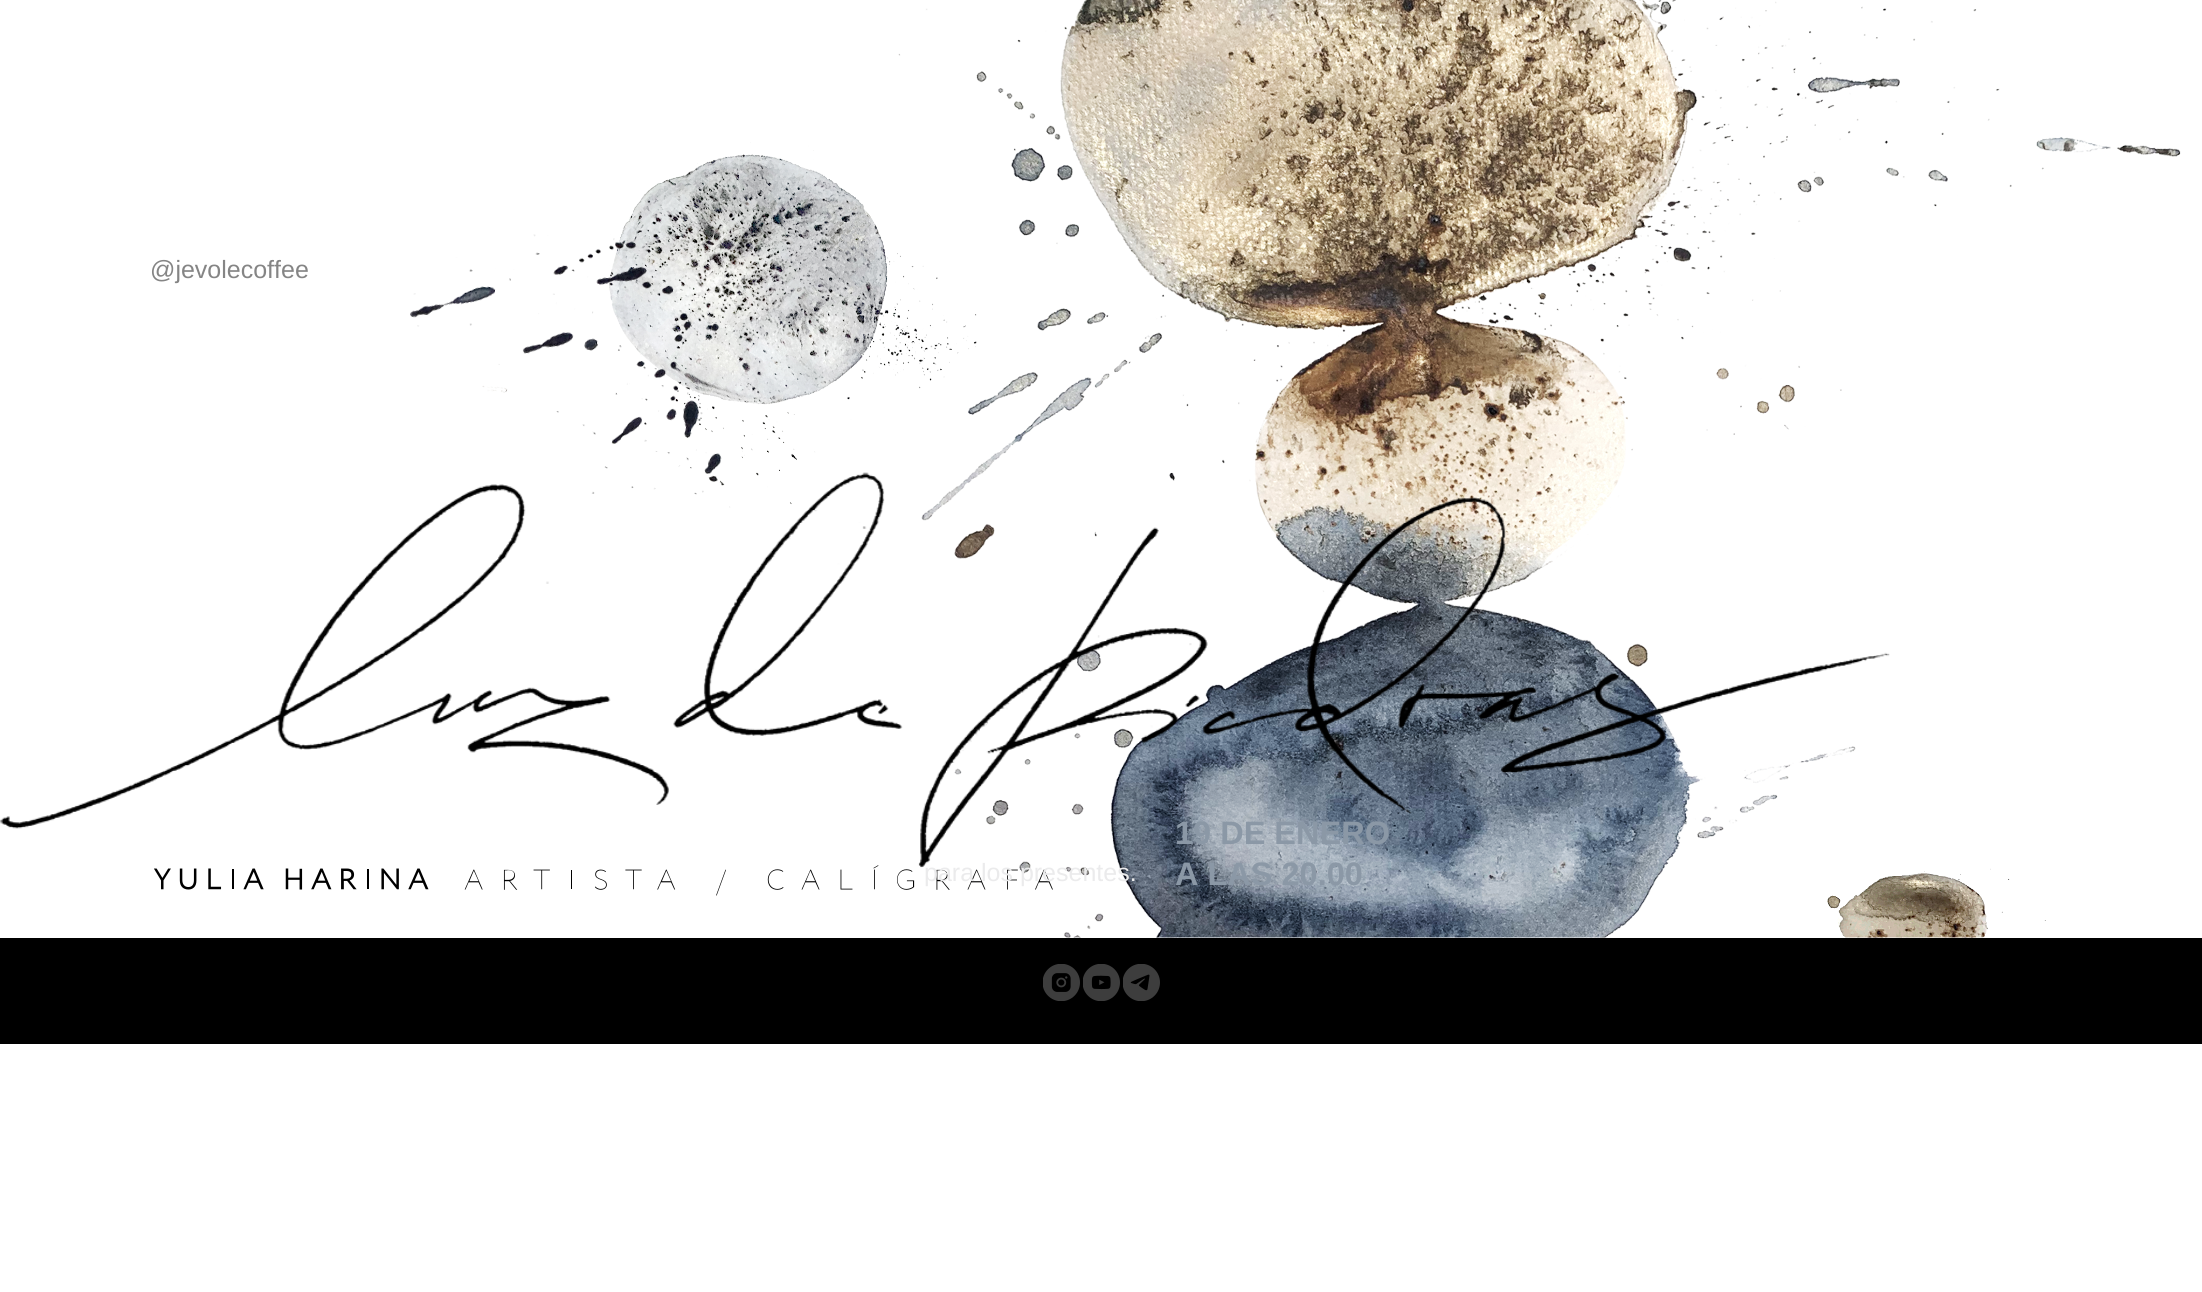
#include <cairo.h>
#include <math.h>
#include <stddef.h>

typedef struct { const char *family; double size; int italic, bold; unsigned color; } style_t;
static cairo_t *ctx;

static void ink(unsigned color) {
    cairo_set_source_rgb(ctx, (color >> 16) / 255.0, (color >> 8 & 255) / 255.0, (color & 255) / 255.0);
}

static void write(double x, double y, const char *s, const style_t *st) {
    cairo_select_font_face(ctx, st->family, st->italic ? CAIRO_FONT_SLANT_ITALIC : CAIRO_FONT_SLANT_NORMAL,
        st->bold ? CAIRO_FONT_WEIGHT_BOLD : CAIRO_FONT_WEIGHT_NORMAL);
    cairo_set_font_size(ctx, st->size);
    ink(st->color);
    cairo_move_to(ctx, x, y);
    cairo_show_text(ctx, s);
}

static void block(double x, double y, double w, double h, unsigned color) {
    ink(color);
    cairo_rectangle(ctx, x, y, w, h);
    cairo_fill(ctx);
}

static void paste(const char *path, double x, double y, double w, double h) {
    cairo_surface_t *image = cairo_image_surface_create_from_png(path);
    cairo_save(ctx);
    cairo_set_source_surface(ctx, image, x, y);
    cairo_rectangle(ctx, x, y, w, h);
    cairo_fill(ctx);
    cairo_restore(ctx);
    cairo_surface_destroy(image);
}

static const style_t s1 = {"Liberation Sans", 25, 0, 0, 0x858585};
static const style_t s2 = {"Liberation Sans", 25, 0, 0, 0xebebec};
static const style_t s3 = {"Liberation Sans", 32.5, 0, 1, 0x8b98a6};

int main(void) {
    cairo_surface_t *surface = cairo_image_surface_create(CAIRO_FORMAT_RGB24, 2202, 1292);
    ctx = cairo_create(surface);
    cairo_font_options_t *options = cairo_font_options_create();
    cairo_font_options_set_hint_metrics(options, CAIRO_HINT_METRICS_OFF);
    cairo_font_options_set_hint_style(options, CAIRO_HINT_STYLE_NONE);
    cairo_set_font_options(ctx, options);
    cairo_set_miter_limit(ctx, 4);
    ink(0xffffff);
    cairo_paint(ctx);
    write(150, 278, "@jevolecoffee", &s1);
    paste("pic3.png", 862, 0, 1319, 938);
    paste("pic2.png", 609, 142, 368, 366);
    paste("pic1.png", 410, 234, 315, 261);
    paste("pic4.png", 0, 472, 1890, 396);
    paste("pic5.png", 154, 865, 899, 31);
    write(924, 881, "para los presentes.", &s2);
    write(1175, 844, "19 DE ENERO", &s3);
    write(1175, 885, "A LAS 20.00", &s3);
    paste("pic6.png", 1827, 868, 219, 70);
    block(0, 938, 2202, 106, 0x000000);
    paste("pic7.png", 1043, 964, 37, 37);
    paste("pic8.png", 1083, 964, 37, 37);
    paste("pic9.png", 1123, 964, 37, 37);
    cairo_surface_write_to_png(surface, "screenshot.png");
    cairo_font_options_destroy(options);
    cairo_destroy(ctx);
    cairo_surface_destroy(surface);
    return 0;
}
